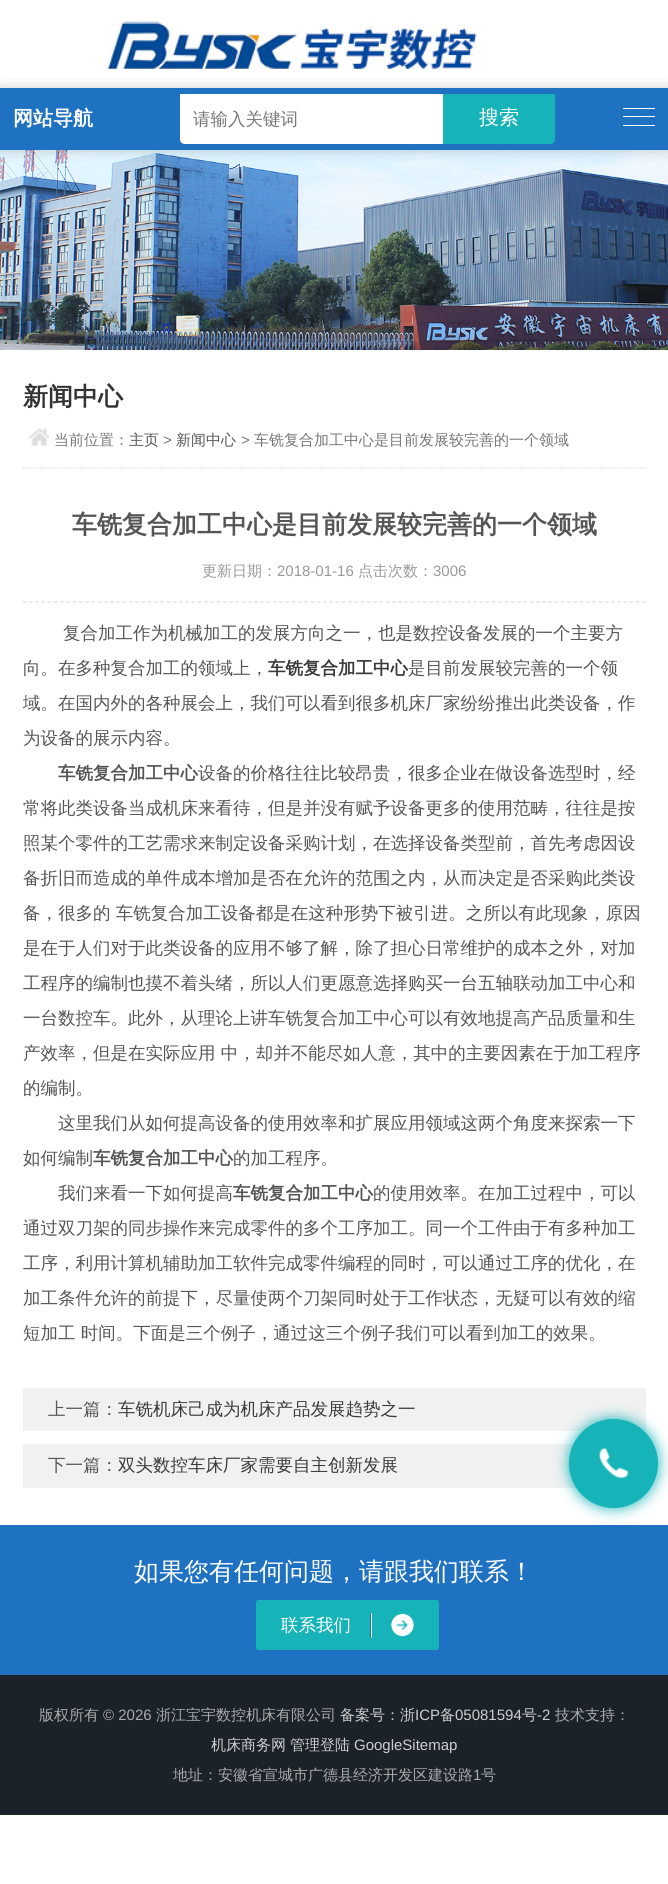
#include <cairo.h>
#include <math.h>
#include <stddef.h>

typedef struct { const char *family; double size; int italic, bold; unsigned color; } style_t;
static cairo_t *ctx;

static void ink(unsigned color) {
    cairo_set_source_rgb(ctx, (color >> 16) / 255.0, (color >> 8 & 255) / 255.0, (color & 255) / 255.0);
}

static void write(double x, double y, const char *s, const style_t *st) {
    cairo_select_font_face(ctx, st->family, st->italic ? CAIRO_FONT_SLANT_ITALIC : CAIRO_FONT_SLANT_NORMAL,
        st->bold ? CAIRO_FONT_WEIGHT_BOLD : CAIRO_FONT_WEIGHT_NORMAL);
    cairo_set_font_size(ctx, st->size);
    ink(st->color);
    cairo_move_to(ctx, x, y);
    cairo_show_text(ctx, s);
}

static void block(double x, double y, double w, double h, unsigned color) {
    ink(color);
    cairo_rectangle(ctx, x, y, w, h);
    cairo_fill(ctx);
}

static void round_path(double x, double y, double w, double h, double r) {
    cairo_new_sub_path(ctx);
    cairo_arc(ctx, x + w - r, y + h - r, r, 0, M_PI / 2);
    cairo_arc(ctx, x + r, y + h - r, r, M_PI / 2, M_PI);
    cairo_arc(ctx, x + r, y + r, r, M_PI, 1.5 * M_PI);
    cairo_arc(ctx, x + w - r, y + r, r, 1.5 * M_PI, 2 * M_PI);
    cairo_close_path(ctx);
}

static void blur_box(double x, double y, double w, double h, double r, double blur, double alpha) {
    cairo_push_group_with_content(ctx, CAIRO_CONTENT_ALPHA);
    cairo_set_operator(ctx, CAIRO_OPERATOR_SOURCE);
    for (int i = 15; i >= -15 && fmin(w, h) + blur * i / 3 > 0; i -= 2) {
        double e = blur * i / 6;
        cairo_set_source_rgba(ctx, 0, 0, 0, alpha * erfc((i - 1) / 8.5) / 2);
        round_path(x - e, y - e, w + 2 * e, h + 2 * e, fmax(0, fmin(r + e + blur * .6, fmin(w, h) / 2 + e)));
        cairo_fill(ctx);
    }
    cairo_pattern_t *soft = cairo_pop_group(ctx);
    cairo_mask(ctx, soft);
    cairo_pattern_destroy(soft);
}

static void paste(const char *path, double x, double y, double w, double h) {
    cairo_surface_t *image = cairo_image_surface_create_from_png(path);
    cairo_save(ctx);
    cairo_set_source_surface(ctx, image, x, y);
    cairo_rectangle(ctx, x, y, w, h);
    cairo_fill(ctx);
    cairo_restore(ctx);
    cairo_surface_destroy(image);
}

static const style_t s1 = {"WenQuanYi Zen Hei", 20, 0, 1, 0xffffff};
static const style_t s2 = {"WenQuanYi Zen Hei Medium", 17.5, 0, 0, 0x777777};
static const style_t s3 = {"WenQuanYi Zen Hei Medium", 20, 0, 0, 0xffffff};
static const style_t s4 = {"WenQuanYi Zen Hei", 25, 0, 1, 0x333333};
static const style_t s5 = {"WenQuanYi Zen Hei Medium", 15, 0, 0, 0x777777};
static const style_t s6 = {"WenQuanYi Zen Hei Medium", 15, 0, 0, 0x555555};
static const style_t s7 = {"Liberation Sans", 15, 0, 0, 0x777777};
static const style_t s8 = {"WenQuanYi Zen Hei", 25, 0, 1, 0x555555};
static const style_t s9 = {"WenQuanYi Zen Hei Medium", 15, 0, 0, 0x999999};
static const style_t s10 = {"Liberation Sans", 15, 0, 0, 0x999999};
static const style_t s11 = {"WenQuanYi Zen Hei Medium", 17.5, 0, 0, 0x555555};
static const style_t s12 = {"WenQuanYi Zen Hei", 17.5, 0, 1, 0x3a3a3a};
static const style_t s13 = {"WenQuanYi Zen Hei", 17.5, 0, 1, 0x555555};
static const style_t s14 = {"WenQuanYi Zen Hei Medium", 17.5, 0, 0, 0x3a3a3a};
static const style_t s15 = {"WenQuanYi Zen Hei Medium", 25, 0, 0, 0xffffff};
static const style_t s16 = {"WenQuanYi Zen Hei Medium", 17.5, 0, 0, 0xffffff};
static const style_t s17 = {"WenQuanYi Zen Hei Medium", 15, 0, 0, 0xaaaaaa};
static const style_t s18 = {"Liberation Sans", 15, 0, 0, 0xaaaaaa};
static const style_t s19 = {"WenQuanYi Zen Hei Medium", 15, 0, 0, 0xcecece};
static const style_t s20 = {"Liberation Sans", 15, 0, 0, 0xcecece};

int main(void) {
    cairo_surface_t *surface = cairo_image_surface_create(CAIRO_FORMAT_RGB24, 668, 1884);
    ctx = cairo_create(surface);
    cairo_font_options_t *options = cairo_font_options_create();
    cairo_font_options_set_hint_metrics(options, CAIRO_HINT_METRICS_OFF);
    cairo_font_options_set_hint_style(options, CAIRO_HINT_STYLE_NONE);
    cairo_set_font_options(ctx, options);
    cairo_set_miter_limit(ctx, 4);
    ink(0xffffff);
    cairo_paint(ctx);
    paste("pic1.png", 107, 21, 370, 48);
    paste("pic2.png", 0, 150, 668, 200);
    ink(0x000000);
    blur_box(0, 88, 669, 62, 0, 6, 0.2);
    block(0, 88, 668, 62, 0x1f71c2);
    write(13, 125, "网站导航", &s1);
    block(623, 108, 32, 1, 0xffffff);
    block(623, 116, 32, 1, 0xffffff);
    block(623, 125, 32, 1, 0xffffff);
    cairo_new_path(ctx);
    cairo_move_to(ctx, 180, 94);
    cairo_line_to(ctx, 443, 94);
    cairo_line_to(ctx, 443, 144);
    cairo_line_to(ctx, 185, 144);
    cairo_curve_to(ctx, 182, 144, 180, 142, 180, 139);
    cairo_close_path(ctx);
    cairo_fill(ctx);
    write(193, 125, "请输入关键词", &s2);
    ink(0x16b4b9);
    cairo_new_path(ctx);
    cairo_move_to(ctx, 443, 94);
    cairo_line_to(ctx, 555, 94);
    cairo_line_to(ctx, 555, 139);
    cairo_curve_to(ctx, 555, 142, 553, 144, 550, 144);
    cairo_line_to(ctx, 443, 144);
    cairo_close_path(ctx);
    cairo_fill(ctx);
    write(479, 124, "搜索", &s3);
    cairo_new_path(ctx);
    cairo_move_to(ctx, 22.5, 468);
    cairo_line_to(ctx, 646, 468);
    ink(0xdedede);
    cairo_set_line_width(ctx, 1.2);
    cairo_set_dash(ctx, (double[]){1.25, 1.25}, 2, 0);
    cairo_stroke(ctx);
    write(23, 405, "新闻中心", &s4);
    paste("pic3.png", 28, 428, 21, 18);
    write(54, 445, "当前位置：", &s5);
    write(129, 445, "主页", &s6);
    write(163, 445, ">", &s7);
    write(176, 445, "新闻中心", &s6);
    write(241, 445, ">", &s7);
    write(254, 445, "车铣复合加工中心是目前发展较完善的一个领域", &s5);
    write(72, 533, "车铣复合加工中心是目前发展较完善的一个领域", &s8);
    cairo_new_path(ctx);
    cairo_move_to(ctx, 22.5, 602);
    cairo_line_to(ctx, 646, 602);
    ink(0xdedede);
    cairo_set_dash(ctx, (double[]){3.75, 2.51}, 2, 0);
    cairo_stroke(ctx);
    write(202, 576, "更新日期：", &s9);
    write(277, 576, "2018-01-16", &s10);
    write(358, 576, "点击次数：", &s9);
    write(433, 576, "3006", &s10);
    write(63, 639, "复合加工作为机械加工的发展方向之一，也是数控设备发展的一个主要方", &s11);
    write(23, 674, "向。在多种复合加工的领域上，", &s11);
    write(268, 674, "车铣复合加工中心", &s12);
    write(408, 674, "是目前发展较完善的一个领", &s11);
    write(23, 709, "域。在国内外的各种展会上，我们可以看到很多机床厂家纷纷推出此类设备，作", &s11);
    write(23, 744, "为设备的展示内容。", &s11);
    write(58, 779, "车铣复合加工中心", &s13);
    write(198, 779, "设备的价格往往比较昂贵，很多企业在做设备选型时，经", &s11);
    write(23, 814, "常将此类设备当成机床来看待，但是并没有赋予设备更多的使用范畴，往往是按", &s11);
    write(23, 849, "照某个零件的工艺需求来制定设备采购计划，在选择设备类型前，首先考虑因设", &s11);
    write(23, 884, "备折旧而造成的单件成本增加是否在允许的范围之内，从而决定是否采购此类设", &s11);
    write(23, 919, "备，很多的 车铣复合加工设备都是在这种形势下被引进。之所以有此现象，原因", &s11);
    write(23, 954, "是在于人们对于此类设备的应用不够了解，除了担心日常维护的成本之外，对加", &s11);
    write(23, 989, "工程序的编制也摸不着头绪，所以人们更愿意选择购买一台五轴联动加工中心和", &s11);
    write(23, 1024, "一台数控车。此外，从理论上讲车铣复合加工中心可以有效地提高产品质量和生", &s11);
    write(23, 1059, "产效率，但是在实际应用 中，却并不能尽如人意，其中的主要因素在于加工程序", &s11);
    write(23, 1094, "的编制。", &s11);
    write(58, 1129, "这里我们从如何提高设备的使用效率和扩展应用领域这两个角度来探索一下", &s11);
    write(23, 1164, "如何编制", &s11);
    write(93, 1164, "车铣复合加工中心", &s13);
    write(233, 1164, "的加工程序。", &s11);
    write(58, 1199, "我们来看一下如何提高", &s11);
    write(233, 1199, "车铣复合加工中心", &s13);
    write(373, 1199, "的使用效率。在加工过程中，可以", &s11);
    write(23, 1234, "通过双刀架的同步操作来完成零件的多个工序加工。同一个工件由于有多种加工", &s11);
    write(23, 1269, "工序，利用计算机辅助加工软件完成零件编程的同时，可以通过工序的优化，在", &s11);
    write(23, 1304, "加工条件允许的前提下，尽量使两个刀架同时处于工作状态，无疑可以有效的缩", &s11);
    write(23, 1339, "短加工 时间。下面是三个例子，通过这三个例子我们可以看到加工的效果。", &s11);
    block(23, 1388, 623, 43, 0xf1f1f1);
    write(48, 1415, "上一篇：", &s11);
    write(118, 1415, "车铣机床己成为机床产品发展趋势之一", &s14);
    block(23, 1444, 554, 44, 0xf1f1f1);
    write(48, 1471, "下一篇：", &s11);
    write(118, 1471, "双头数控车床厂家需要自主创新发展", &s14);
    block(0, 1525, 668, 150, 0x1f71c2);
    ink(0x16b4b9);
    blur_box(569, 1419, 89, 89, 44.5, 7, 1);
    ink(0x16b4b9);
    cairo_arc(ctx, 613.5, 1463.5, 44.5, 0, 2 * M_PI);
    cairo_fill(ctx);
    paste("pic4.png", 599, 1448, 30, 31);
    write(134, 1580, "如果您有任何问题，请跟我们联系！", &s15);
    ink(0x16b4b9);
    round_path(256, 1600, 183, 50, 2.5);
    cairo_fill(ctx);
    block(370, 1613, 1, 25, 0x138488);
    write(281, 1631, "联系我们", &s16);
    block(371, 1613, 1, 25, 0xffffff);
    paste("pic5.png", 391, 1613, 23, 24);
    block(0, 1675, 668, 140, 0x1c222a);
    write(39, 1720, "版权所有", &s17);
    write(103, 1720, "© 2026", &s18);
    write(156, 1720, "浙江宝宇数控机床有限公司", &s17);
    write(340, 1720, "备案号：浙", &s19);
    write(415, 1720, "ICP", &s20);
    write(440, 1720, "备", &s19);
    write(455, 1720, "05081594", &s20);
    write(522, 1720, "号", &s19);
    write(537, 1720, "-2", &s20);
    write(555, 1720, "技术支持：", &s17);
    write(211, 1750, "机床商务网", &s19);
    write(290, 1750, "管理登陆", &s19);
    write(354, 1750, "GoogleSitemap", &s20);
    write(173, 1780, "地址：安徽省宣城市广德县经济开发区建设路", &s17);
    write(473, 1780, "1", &s18);
    write(481, 1780, "号", &s17);
    cairo_surface_write_to_png(surface, "screenshot.png");
    cairo_font_options_destroy(options);
    cairo_destroy(ctx);
    cairo_surface_destroy(surface);
    return 0;
}
